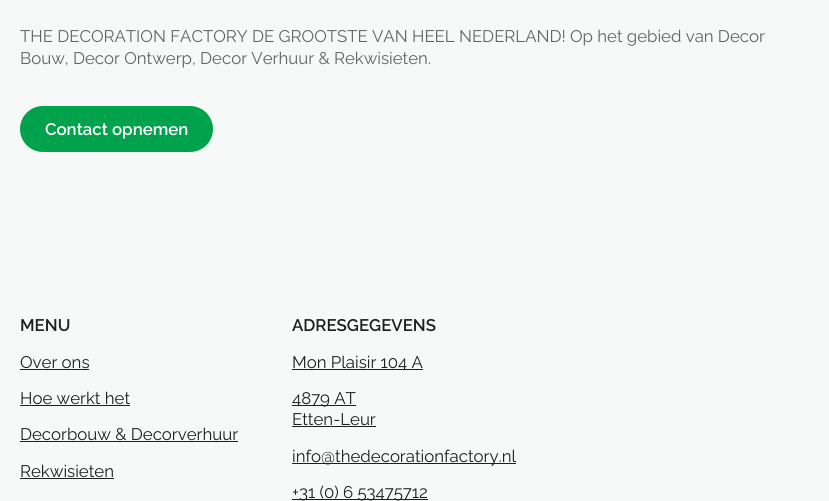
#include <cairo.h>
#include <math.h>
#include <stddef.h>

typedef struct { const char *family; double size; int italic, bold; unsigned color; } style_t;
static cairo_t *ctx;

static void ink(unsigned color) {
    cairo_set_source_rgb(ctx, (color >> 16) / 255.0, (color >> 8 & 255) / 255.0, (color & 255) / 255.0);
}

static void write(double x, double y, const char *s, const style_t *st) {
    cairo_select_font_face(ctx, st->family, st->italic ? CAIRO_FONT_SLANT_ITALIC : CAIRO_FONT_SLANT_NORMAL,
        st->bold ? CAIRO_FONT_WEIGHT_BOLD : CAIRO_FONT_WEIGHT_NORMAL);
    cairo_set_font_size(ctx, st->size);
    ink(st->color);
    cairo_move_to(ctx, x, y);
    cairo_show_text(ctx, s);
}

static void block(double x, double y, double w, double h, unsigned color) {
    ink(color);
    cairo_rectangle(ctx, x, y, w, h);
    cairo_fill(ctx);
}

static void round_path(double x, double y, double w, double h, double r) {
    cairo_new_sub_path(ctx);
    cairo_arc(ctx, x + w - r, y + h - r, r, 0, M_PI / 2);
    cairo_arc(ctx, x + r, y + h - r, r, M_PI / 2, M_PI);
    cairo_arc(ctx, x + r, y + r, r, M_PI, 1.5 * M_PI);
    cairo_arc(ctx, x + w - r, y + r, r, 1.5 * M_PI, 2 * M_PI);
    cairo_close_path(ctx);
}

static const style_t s1 = {"Raleway", 16.8, 0, 0, 0x5f6563};
static const style_t s2 = {"Raleway SemiBold", 16.8, 0, 0, 0xffffff};
static const style_t s3 = {"Raleway SemiBold", 16.8, 0, 0, 0x1a211e};
static const style_t s4 = {"Raleway", 16.8, 0, 0, 0x1a211e};

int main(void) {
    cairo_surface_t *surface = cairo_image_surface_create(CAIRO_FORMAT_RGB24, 829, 501);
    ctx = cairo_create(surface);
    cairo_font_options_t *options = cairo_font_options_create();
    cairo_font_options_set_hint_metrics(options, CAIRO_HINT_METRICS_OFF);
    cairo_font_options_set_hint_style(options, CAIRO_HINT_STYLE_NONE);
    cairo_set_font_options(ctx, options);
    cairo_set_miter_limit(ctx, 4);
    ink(0xf7f9f8);
    cairo_paint(ctx);
    write(20, 42, "THE DECORATION FACTORY DE GROOTSTE VAN HEEL NEDERLAND! Op het gebied van Decor", &s1);
    write(20, 64, "Bouw, Decor Ontwerp, Decor Verhuur & Rekwisieten.", &s1);
    ink(0x00a34c);
    round_path(20, 106, 193, 46, 23);
    cairo_fill(ctx);
    write(45, 135, "Contact opnemen", &s2);
    write(20, 331, "MENU", &s3);
    write(20, 368, "Over ons", &s4);
    block(20, 369, 69, 1, 0x1a211e);
    write(20, 404, "Hoe werkt het", &s4);
    block(20, 405, 110, 1, 0x1a211e);
    write(20, 440, "Decorbouw & Decorverhuur", &s4);
    block(20, 441, 218, 1, 0x1a211e);
    write(20, 477, "Rekwisieten", &s4);
    block(20, 478, 94, 1, 0x1a211e);
    write(292, 331, "ADRESGEGEVENS", &s3);
    block(292, 369, 131, 1, 0x1a211e);
    write(292, 368, "Mon Plaisir 104 A", &s4);
    block(292, 405, 64, 1, 0x1a211e);
    write(292, 404, "4879 AT", &s4);
    write(292, 425, "Etten-Leur", &s4);
    block(292, 426, 84, 1, 0x1a211e);
    block(292, 463, 224, 1, 0x1a211e);
    write(292, 462, "info@thedecorationfactory.nl", &s4);
    block(292, 499, 136, 1, 0x1a211e);
    write(292, 498, "+31 (0) 6 53475712", &s4);
    cairo_surface_write_to_png(surface, "screenshot.png");
    cairo_font_options_destroy(options);
    cairo_destroy(ctx);
    cairo_surface_destroy(surface);
    return 0;
}
